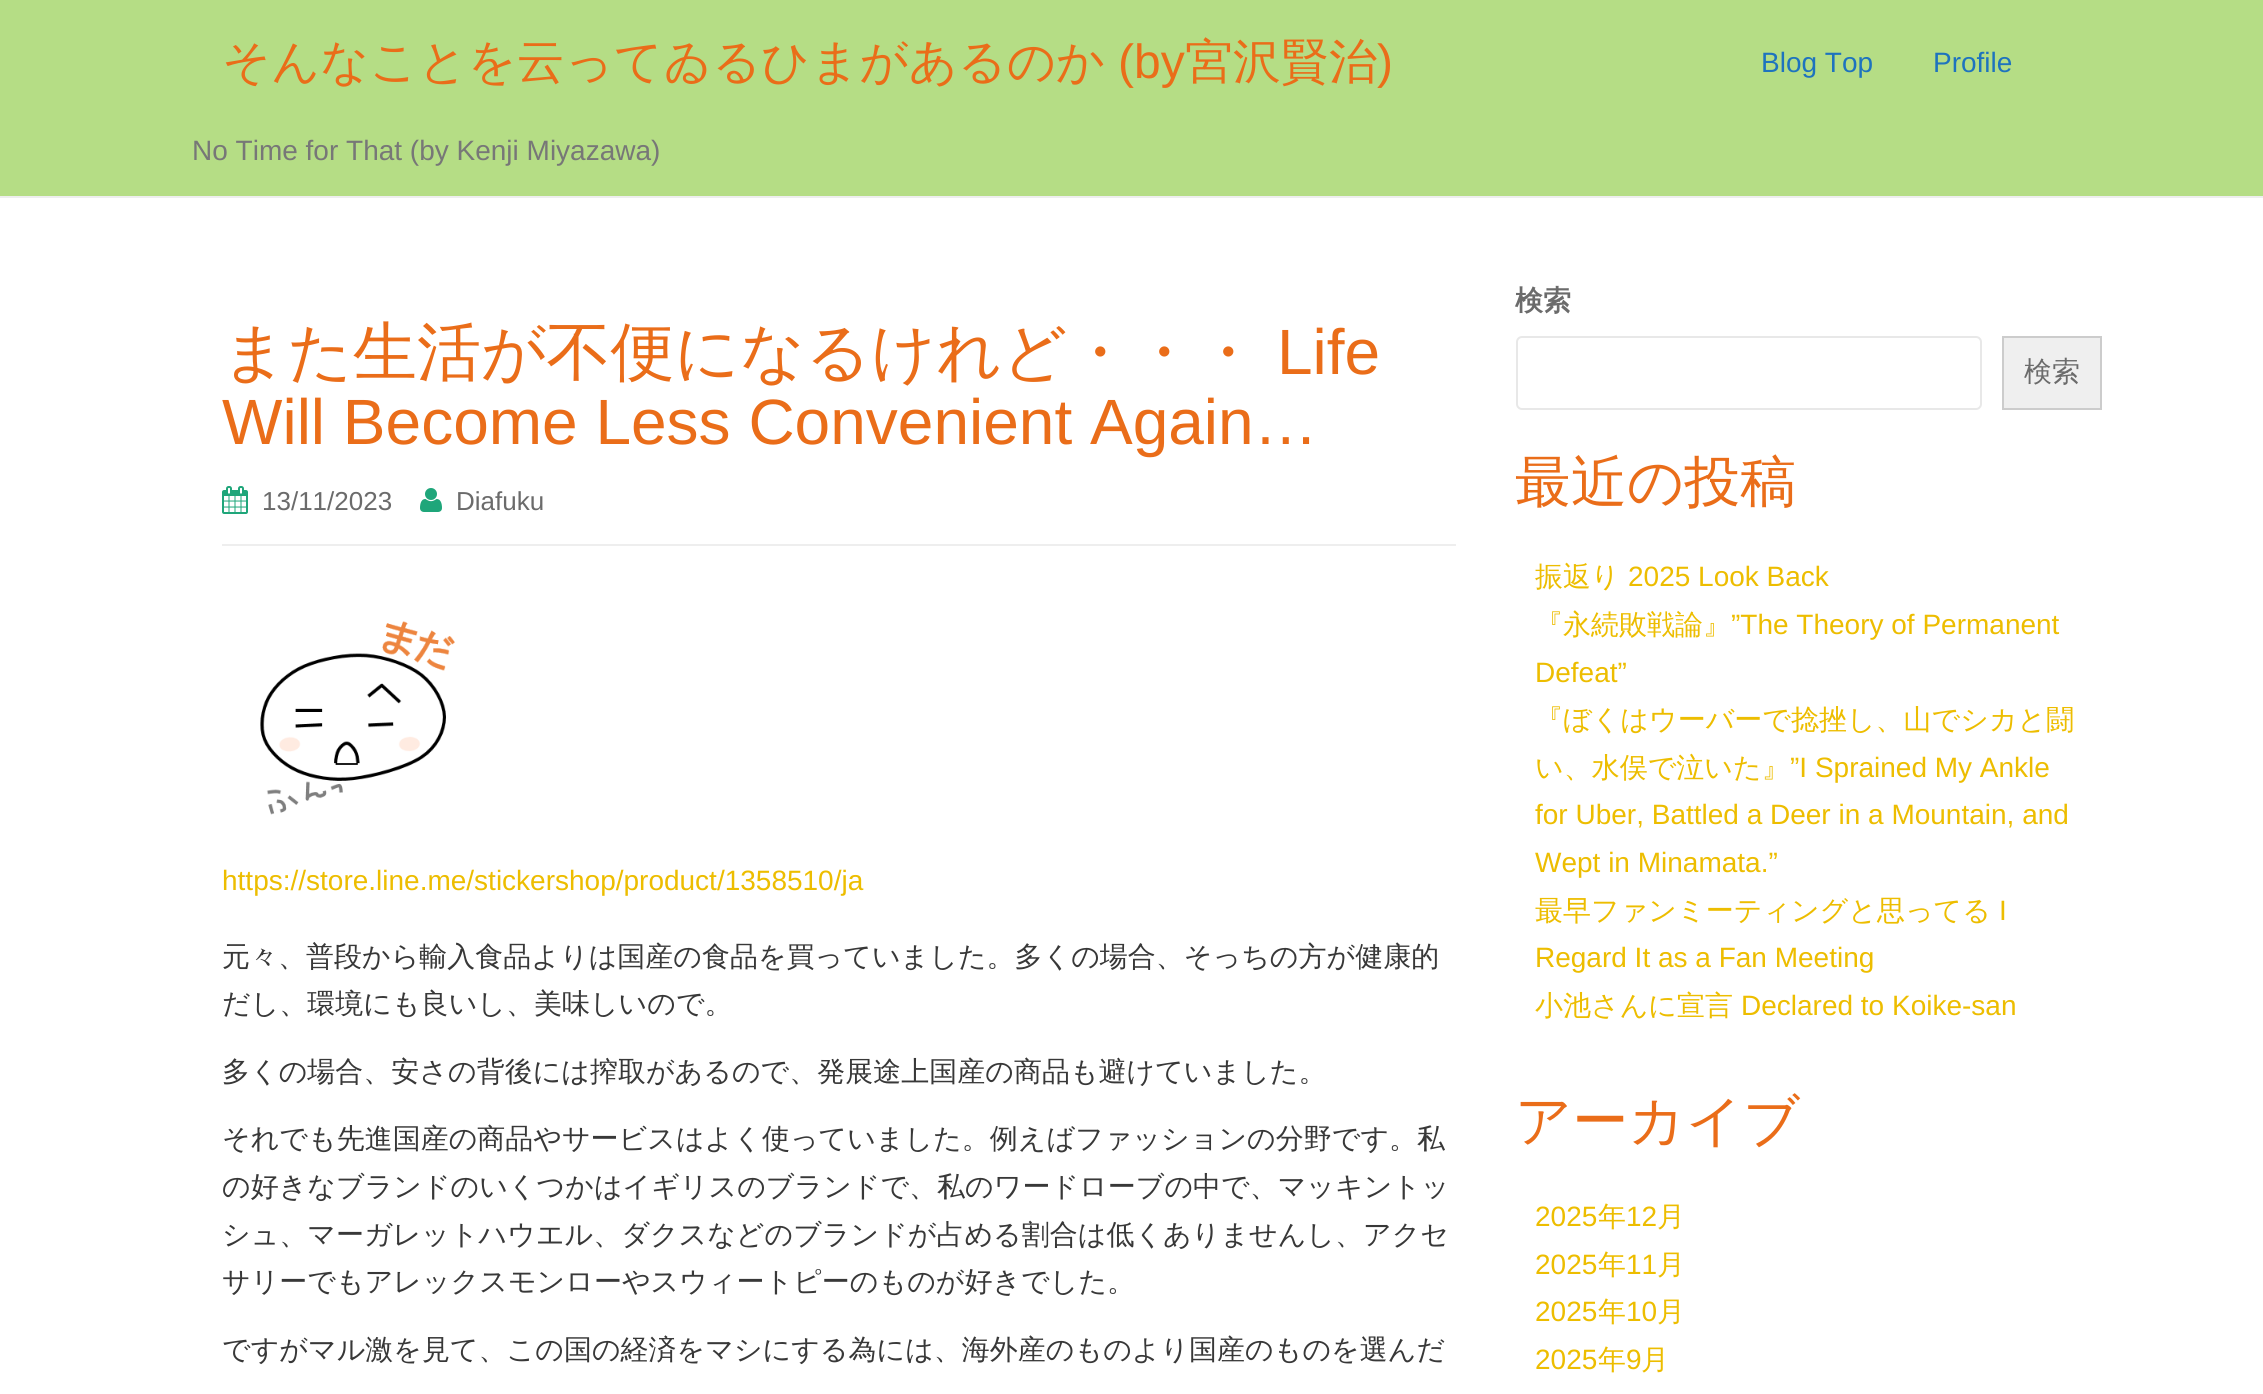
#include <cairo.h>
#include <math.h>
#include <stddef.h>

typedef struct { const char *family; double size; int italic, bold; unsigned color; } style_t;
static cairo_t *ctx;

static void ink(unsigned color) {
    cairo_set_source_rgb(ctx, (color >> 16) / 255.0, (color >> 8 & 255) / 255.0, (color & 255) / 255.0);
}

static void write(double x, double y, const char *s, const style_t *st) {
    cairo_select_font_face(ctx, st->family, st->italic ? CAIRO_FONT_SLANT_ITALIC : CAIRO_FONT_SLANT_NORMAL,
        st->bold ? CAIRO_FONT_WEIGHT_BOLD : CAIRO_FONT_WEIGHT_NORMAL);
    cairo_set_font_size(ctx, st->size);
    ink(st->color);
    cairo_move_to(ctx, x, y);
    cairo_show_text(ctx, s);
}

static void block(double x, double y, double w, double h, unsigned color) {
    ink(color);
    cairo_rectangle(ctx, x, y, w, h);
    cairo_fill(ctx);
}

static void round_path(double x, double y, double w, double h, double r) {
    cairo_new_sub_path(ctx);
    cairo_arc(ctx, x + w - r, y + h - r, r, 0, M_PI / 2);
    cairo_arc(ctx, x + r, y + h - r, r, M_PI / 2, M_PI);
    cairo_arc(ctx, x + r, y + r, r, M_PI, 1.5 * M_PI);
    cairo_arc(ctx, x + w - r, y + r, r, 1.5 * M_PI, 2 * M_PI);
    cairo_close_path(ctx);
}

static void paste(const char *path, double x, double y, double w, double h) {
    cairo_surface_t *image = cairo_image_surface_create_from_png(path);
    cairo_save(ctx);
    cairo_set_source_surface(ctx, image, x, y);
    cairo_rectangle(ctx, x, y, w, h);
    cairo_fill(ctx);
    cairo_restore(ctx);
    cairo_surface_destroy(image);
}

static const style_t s1 = {"WenQuanYi Zen Hei Medium", 48, 0, 0, 0xea6d19};
static const style_t s2 = {"Liberation Sans", 48, 0, 0, 0xea6d19};
static const style_t s3 = {"Liberation Sans", 28, 0, 0, 0x777777};
static const style_t s4 = {"Liberation Sans", 28, 0, 0, 0x1e73be};
static const style_t s5 = {"WenQuanYi Zen Hei Medium", 64, 0, 0, 0xea6d19};
static const style_t s6 = {"Liberation Sans", 64, 0, 0, 0xea6d19};
static const style_t s7 = {"Liberation Sans", 26, 0, 0, 0x6b6b6b};
static const style_t s8 = {"Liberation Sans", 28, 0, 0, 0xedbd00};
static const style_t s9 = {"WenQuanYi Zen Hei Medium", 28, 0, 0, 0x383838};
static const style_t s10 = {"WenQuanYi Zen Hei", 28, 0, 1, 0x6b6b6b};
static const style_t s11 = {"WenQuanYi Zen Hei Medium", 28, 0, 0, 0x6b6b6b};
static const style_t s12 = {"WenQuanYi Zen Hei Medium", 56, 0, 0, 0xea6d19};
static const style_t s13 = {"WenQuanYi Zen Hei Medium", 28, 0, 0, 0xedbd00};

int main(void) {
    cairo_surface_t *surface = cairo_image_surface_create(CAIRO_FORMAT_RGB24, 2263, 1394);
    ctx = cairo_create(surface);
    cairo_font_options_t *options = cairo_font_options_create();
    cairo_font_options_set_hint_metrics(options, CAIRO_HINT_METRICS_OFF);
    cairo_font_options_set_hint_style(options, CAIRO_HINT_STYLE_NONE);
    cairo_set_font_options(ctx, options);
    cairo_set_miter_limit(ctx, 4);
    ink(0xffffff);
    cairo_paint(ctx);
    block(0, 0, 2263, 196, 0xb5dd85);
    block(0, 196, 2263, 2, 0xeeeeee);
    write(222, 78, "そんなことを云ってゐるひまがあるのか", &s1);
    write(1118, 78, "(by", &s2);
    write(1185, 78, "宮沢賢治", &s1);
    write(1377, 78, ")", &s2);
    write(192, 160, "No Time for That (by Kenji Miyazawa)", &s3);
    write(1761, 72, "Blog Top", &s4);
    write(1933, 72, "Profile", &s4);
    block(222, 544, 1234, 2, 0xeeeeee);
    write(222, 374, "また生活が不便になるけれど・・・", &s5);
    write(1277, 374, "Life", &s6);
    write(222, 444, "Will Become Less Convenient Again…", &s6);
    paste("pic1.png", 222, 486, 26, 28);
    write(262, 510, "13/11/2023", &s7);
    paste("pic2.png", 420, 488, 22, 24);
    write(456, 510, "Diafuku", &s7);
    paste("pic3.png", 260, 621, 195, 194);
    write(222, 890, "https://store.line.me/stickershop/product/1358510/ja", &s8);
    write(222, 966, "元々、普段から輸入食品よりは国産の食品を買っていました。多くの場合、そっちの方が健康的", &s9);
    write(222, 1013, "だし、環境にも良いし、美味しいので。", &s9);
    write(222, 1081, "多くの場合、安さの背後には搾取があるので、発展途上国産の商品も避けていました。", &s9);
    write(222, 1148, "それでも先進国産の商品やサービスはよく使っていました。例えばファッションの分野です。私", &s9);
    write(222, 1196, "の好きなブランドのいくつかはイギリスのブランドで、私のワードローブの中で、マッキントッ", &s9);
    write(222, 1244, "シュ、マーガレットハウエル、ダクスなどのブランドが占める割合は低くありませんし、アクセ", &s9);
    write(222, 1291, "サリーでもアレックスモンローやスウィートピーのものが好きでした。", &s9);
    write(222, 1359, "ですがマル激を見て、この国の経済をマシにする為には、海外産のものより国産のものを選んだ", &s9);
    write(1515, 310, "検索", &s10);
    round_path(1517, 337, 464, 72, 5);
    ink(0xe8e8e8);
    cairo_stroke(ctx);
    ink(0xefefef);
    cairo_rectangle(ctx, 2003, 337, 98, 72);
    cairo_fill_preserve(ctx);
    ink(0xcccccc);
    cairo_stroke(ctx);
    write(2024, 381, "検索", &s11);
    write(1515, 501, "最近の投稿", &s12);
    write(1535, 586, "振返り", &s13);
    write(1628, 586, "2025 Look Back", &s8);
    write(1535, 634, "『永続敗戦論』", &s13);
    write(1731, 634, "”The Theory of Permanent", &s8);
    write(1535, 682, "Defeat”", &s8);
    write(1535, 729, "『ぼくはウーバーで捻挫し、山でシカと闘", &s13);
    write(1535, 777, "い、水俣で泣いた』", &s13);
    write(1790, 777, "”I Sprained My Ankle", &s8);
    write(1535, 824, "for Uber, Battled a Deer in a Mountain, and", &s8);
    write(1535, 872, "Wept in Minamata.”", &s8);
    write(1535, 920, "最早ファンミーティングと思ってる", &s13);
    write(1999, 920, "I", &s8);
    write(1535, 967, "Regard It as a Fan Meeting", &s8);
    write(1535, 1015, "小池さんに宣言", &s13);
    write(1741, 1015, "Declared to Koike-san", &s8);
    write(1515, 1140, "アーカイブ", &s12);
    write(1535, 1226, "2025", &s8);
    write(1598, 1226, "年", &s13);
    write(1626, 1226, "12", &s8);
    write(1657, 1226, "月", &s13);
    write(1535, 1274, "2025", &s8);
    write(1598, 1274, "年", &s13);
    write(1626, 1274, "11", &s8);
    write(1657, 1274, "月", &s13);
    write(1535, 1321, "2025", &s8);
    write(1598, 1321, "年", &s13);
    write(1626, 1321, "10", &s8);
    write(1657, 1321, "月", &s13);
    write(1535, 1369, "2025", &s8);
    write(1598, 1369, "年", &s13);
    write(1626, 1369, "9", &s8);
    write(1641, 1369, "月", &s13);
    cairo_surface_write_to_png(surface, "screenshot.png");
    cairo_font_options_destroy(options);
    cairo_destroy(ctx);
    cairo_surface_destroy(surface);
    return 0;
}
